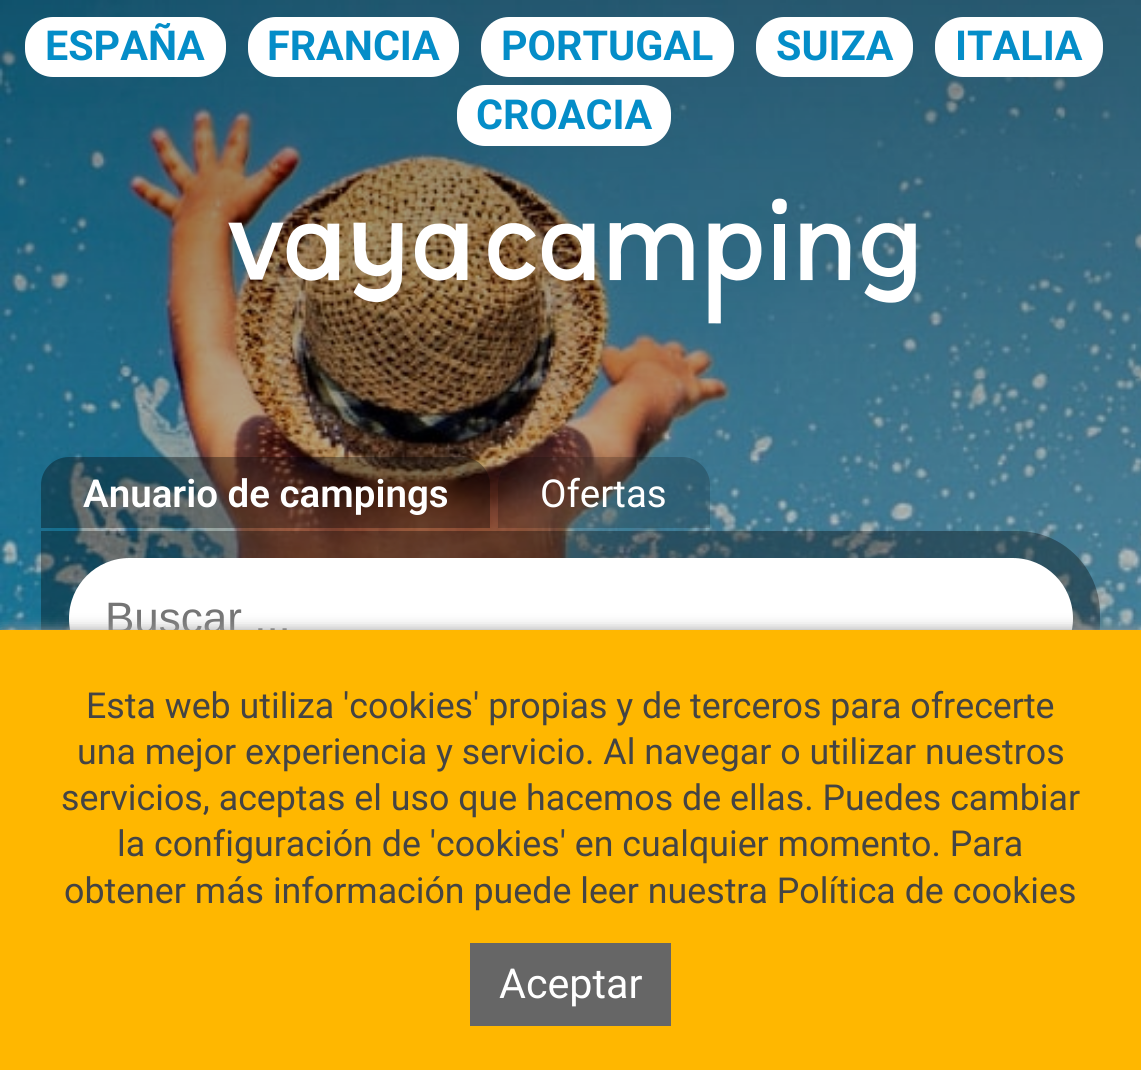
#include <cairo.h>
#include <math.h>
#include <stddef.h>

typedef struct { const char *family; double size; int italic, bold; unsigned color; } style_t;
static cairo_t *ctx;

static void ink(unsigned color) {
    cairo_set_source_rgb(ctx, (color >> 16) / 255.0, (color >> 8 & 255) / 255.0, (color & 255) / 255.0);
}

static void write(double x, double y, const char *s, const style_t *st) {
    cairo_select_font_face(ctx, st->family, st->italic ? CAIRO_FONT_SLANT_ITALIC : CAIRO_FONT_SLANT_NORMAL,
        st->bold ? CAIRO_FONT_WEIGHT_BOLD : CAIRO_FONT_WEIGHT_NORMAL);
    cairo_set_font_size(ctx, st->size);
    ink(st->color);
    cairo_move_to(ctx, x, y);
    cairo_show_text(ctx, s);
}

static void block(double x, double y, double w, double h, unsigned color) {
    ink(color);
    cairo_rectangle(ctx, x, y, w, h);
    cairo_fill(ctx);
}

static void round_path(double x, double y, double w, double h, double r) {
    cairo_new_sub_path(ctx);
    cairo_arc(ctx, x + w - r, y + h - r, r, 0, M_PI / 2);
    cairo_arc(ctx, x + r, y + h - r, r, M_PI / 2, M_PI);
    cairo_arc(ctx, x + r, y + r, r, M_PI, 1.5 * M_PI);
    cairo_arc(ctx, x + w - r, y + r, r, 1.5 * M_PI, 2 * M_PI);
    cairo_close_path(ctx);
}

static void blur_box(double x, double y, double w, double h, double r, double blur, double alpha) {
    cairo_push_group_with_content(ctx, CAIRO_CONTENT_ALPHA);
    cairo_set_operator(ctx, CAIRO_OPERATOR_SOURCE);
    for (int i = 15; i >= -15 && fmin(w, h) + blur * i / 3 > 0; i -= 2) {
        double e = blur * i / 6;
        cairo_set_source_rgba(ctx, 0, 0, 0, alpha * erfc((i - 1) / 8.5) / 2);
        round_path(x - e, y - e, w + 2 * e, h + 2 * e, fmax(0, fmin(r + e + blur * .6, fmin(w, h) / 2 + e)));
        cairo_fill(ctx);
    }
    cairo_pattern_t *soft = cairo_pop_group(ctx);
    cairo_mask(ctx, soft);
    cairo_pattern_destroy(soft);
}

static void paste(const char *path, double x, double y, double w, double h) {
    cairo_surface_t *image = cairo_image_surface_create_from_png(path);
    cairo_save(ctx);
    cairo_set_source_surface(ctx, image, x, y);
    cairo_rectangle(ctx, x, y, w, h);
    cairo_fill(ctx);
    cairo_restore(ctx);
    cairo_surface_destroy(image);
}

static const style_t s1 = {"Roboto", 41.25, 0, 1, 0x048dc8};
static const style_t s2 = {"Roboto SemiBold", 38.5, 0, 0, 0xffffff};
static const style_t s3 = {"Roboto", 38.5, 0, 0, 0xffffff};
static const style_t s4 = {"Liberation Sans", 44, 0, 0, 0x757575};
static const style_t s5 = {"Roboto", 35.75, 0, 0, 0x444444};
static const style_t s6 = {"Roboto", 41.25, 0, 0, 0xffffff};

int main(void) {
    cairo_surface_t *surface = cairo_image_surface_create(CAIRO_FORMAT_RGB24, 1141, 1070);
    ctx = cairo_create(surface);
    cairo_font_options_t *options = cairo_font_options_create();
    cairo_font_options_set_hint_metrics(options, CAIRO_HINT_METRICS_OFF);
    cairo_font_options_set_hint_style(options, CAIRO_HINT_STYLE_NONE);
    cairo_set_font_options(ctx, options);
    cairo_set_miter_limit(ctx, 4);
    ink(0xffffff);
    cairo_paint(ctx);
    paste("pic1.png", 0, 0, 1141, 630);
    ink(0xffffff);
    round_path(25, 17, 201, 60, 28);
    cairo_fill(ctx);
    write(45, 60, "ESPAÑA", &s1);
    ink(0xffffff);
    round_path(248, 17, 211, 60, 28);
    cairo_fill(ctx);
    write(267, 60, "FRANCIA", &s1);
    ink(0xffffff);
    round_path(481, 17, 253, 60, 28);
    cairo_fill(ctx);
    write(501, 60, "PORTUGAL", &s1);
    ink(0xffffff);
    round_path(756, 17, 157, 60, 28);
    cairo_fill(ctx);
    write(776, 60, "SUIZA", &s1);
    ink(0xffffff);
    round_path(935, 17, 168, 60, 28);
    cairo_fill(ctx);
    write(955, 60, "ITALIA", &s1);
    ink(0xffffff);
    round_path(457, 85, 214, 61, 28);
    cairo_fill(ctx);
    write(476, 129, "CROACIA", &s1);
    paste("pic2.png", 228, 198, 688, 126);
    cairo_set_source_rgba(ctx, 0, 0, 0, 0.35);
    cairo_new_path(ctx);
    cairo_move_to(ctx, 69, 457);
    cairo_line_to(ctx, 462, 457);
    cairo_curve_to(ctx, 477.5, 457, 490, 469.5, 490, 485);
    cairo_line_to(ctx, 490, 528);
    cairo_line_to(ctx, 41, 528);
    cairo_line_to(ctx, 41, 485);
    cairo_curve_to(ctx, 41, 469.5, 53.5, 457, 69, 457);
    cairo_close_path(ctx);
    cairo_fill(ctx);
    write(83, 507, "Anuario de campings", &s2);
    cairo_set_source_rgba(ctx, 0, 0, 0, 0.2);
    cairo_new_path(ctx);
    cairo_move_to(ctx, 526, 457);
    cairo_line_to(ctx, 682, 457);
    cairo_curve_to(ctx, 697.5, 457, 710, 469.5, 710, 485);
    cairo_line_to(ctx, 710, 528);
    cairo_line_to(ctx, 498, 528);
    cairo_line_to(ctx, 498, 485);
    cairo_curve_to(ctx, 498, 469.5, 510.5, 457, 526, 457);
    cairo_close_path(ctx);
    cairo_fill(ctx);
    write(540, 507, "Ofertas", &s3);
    cairo_set_source_rgba(ctx, 0, 0, 0, 0.35);
    cairo_new_path(ctx);
    cairo_move_to(ctx, 41, 531);
    cairo_line_to(ctx, 1017, 531);
    cairo_curve_to(ctx, 1063, 531, 1100, 568, 1100, 614);
    cairo_line_to(ctx, 1100, 624);
    cairo_curve_to(ctx, 1100, 670, 1063, 707, 1017, 707);
    cairo_line_to(ctx, 124, 707);
    cairo_curve_to(ctx, 78, 707, 41, 670, 41, 624);
    cairo_close_path(ctx);
    cairo_fill(ctx);
    ink(0xffffff);
    round_path(69, 558, 1004, 121, 60.5);
    cairo_fill(ctx);
    write(105, 633, "Buscar ...", &s4);
    ink(0x9d9d9d);
    blur_box(0, 630, 1141, 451, 0, 7, 1);
    block(0, 630, 1141, 440, 0xffb700);
    write(86, 718, "Esta web utiliza 'cookies' propias y de terceros para ofrecerte", &s5);
    write(77, 764, "una mejor experiencia y servicio. Al navegar o utilizar nuestros", &s5);
    write(61, 810, "servicios, aceptas el uso que hacemos de ellas. Puedes cambiar", &s5);
    write(117, 856, "la configuración de 'cookies' en cualquier momento. Para", &s5);
    write(64, 903, "obtener más información puede leer nuestra Política de cookies", &s5);
    block(470, 943, 201, 83, 0x666666);
    write(499, 998, "Aceptar", &s6);
    cairo_surface_write_to_png(surface, "screenshot.png");
    cairo_font_options_destroy(options);
    cairo_destroy(ctx);
    cairo_surface_destroy(surface);
    return 0;
}
